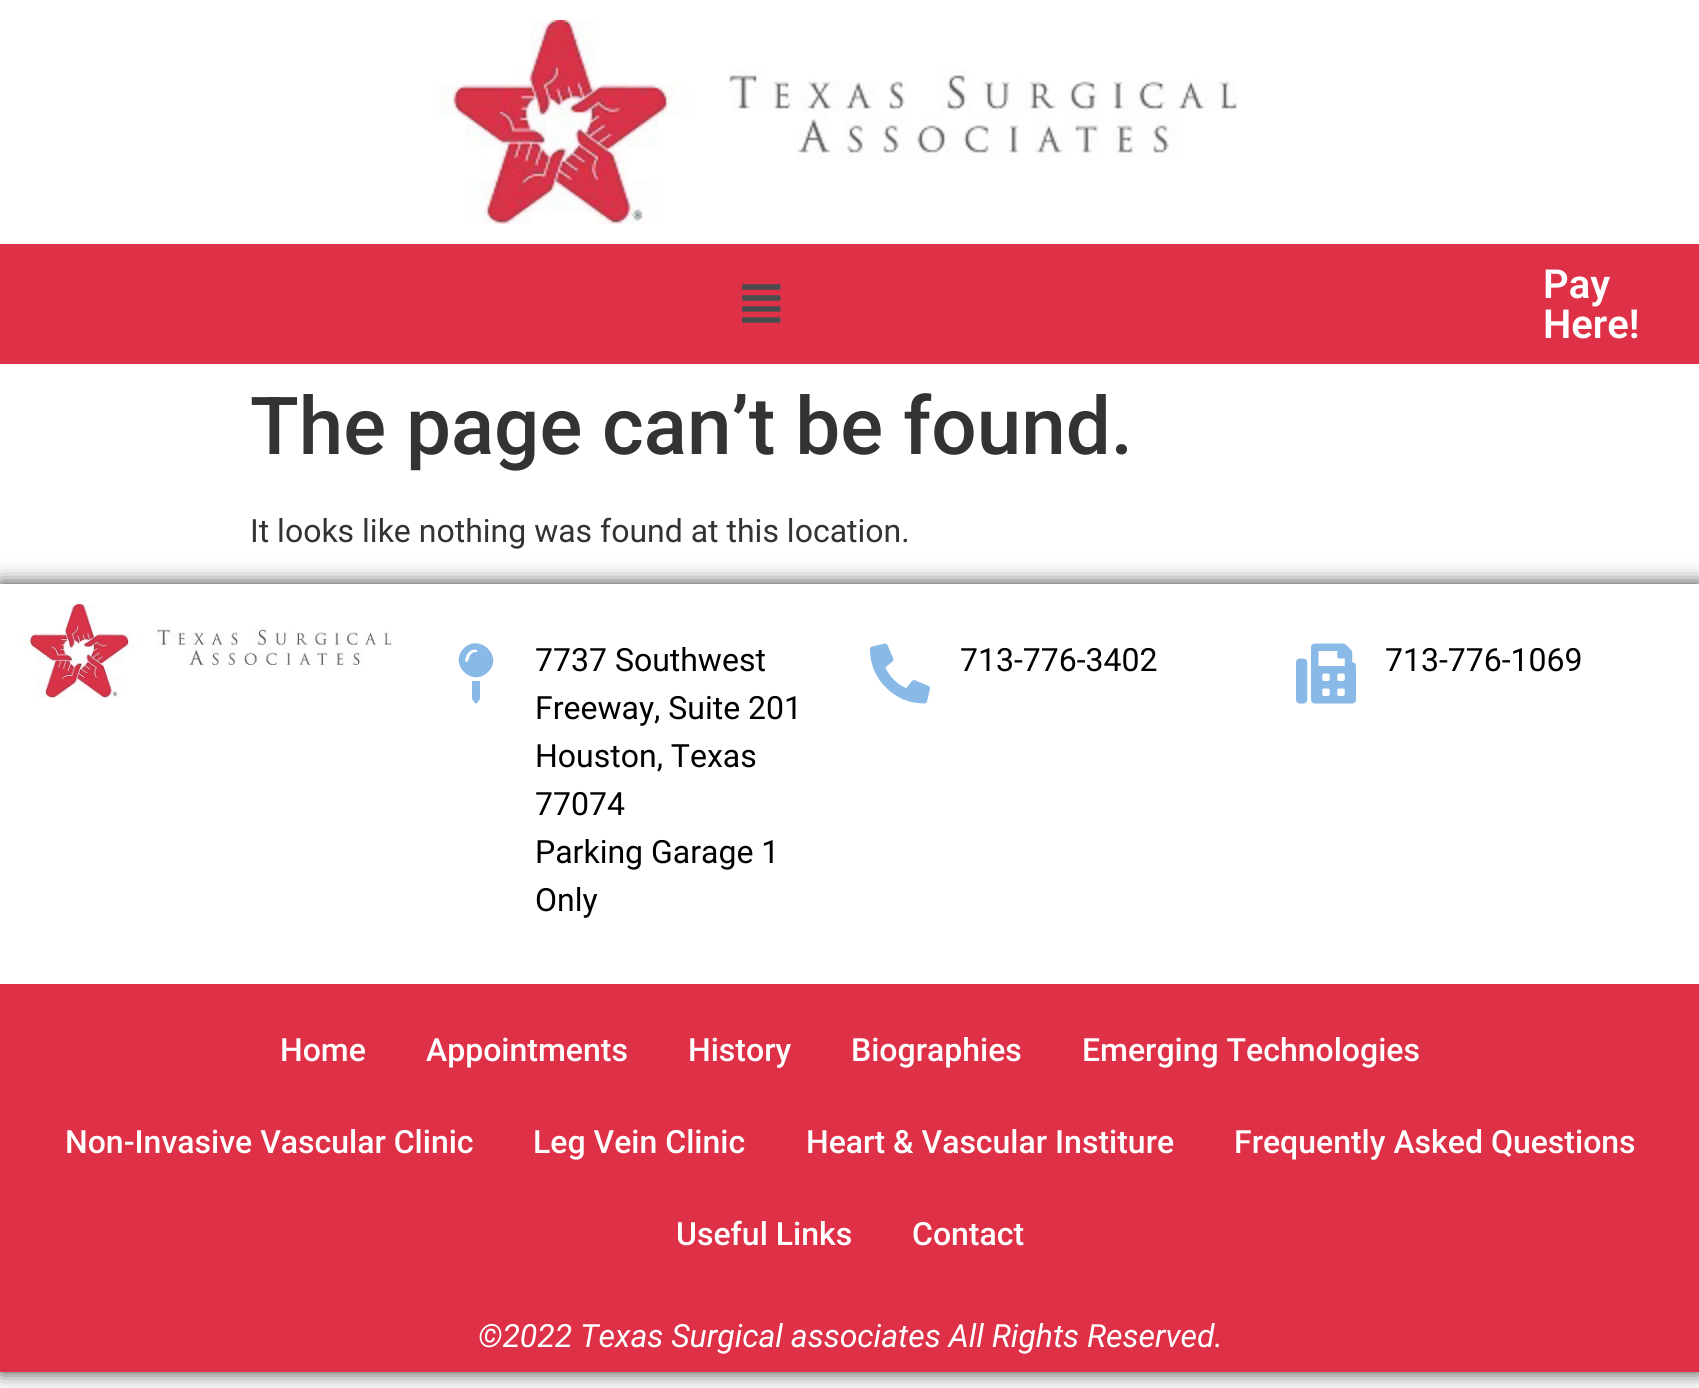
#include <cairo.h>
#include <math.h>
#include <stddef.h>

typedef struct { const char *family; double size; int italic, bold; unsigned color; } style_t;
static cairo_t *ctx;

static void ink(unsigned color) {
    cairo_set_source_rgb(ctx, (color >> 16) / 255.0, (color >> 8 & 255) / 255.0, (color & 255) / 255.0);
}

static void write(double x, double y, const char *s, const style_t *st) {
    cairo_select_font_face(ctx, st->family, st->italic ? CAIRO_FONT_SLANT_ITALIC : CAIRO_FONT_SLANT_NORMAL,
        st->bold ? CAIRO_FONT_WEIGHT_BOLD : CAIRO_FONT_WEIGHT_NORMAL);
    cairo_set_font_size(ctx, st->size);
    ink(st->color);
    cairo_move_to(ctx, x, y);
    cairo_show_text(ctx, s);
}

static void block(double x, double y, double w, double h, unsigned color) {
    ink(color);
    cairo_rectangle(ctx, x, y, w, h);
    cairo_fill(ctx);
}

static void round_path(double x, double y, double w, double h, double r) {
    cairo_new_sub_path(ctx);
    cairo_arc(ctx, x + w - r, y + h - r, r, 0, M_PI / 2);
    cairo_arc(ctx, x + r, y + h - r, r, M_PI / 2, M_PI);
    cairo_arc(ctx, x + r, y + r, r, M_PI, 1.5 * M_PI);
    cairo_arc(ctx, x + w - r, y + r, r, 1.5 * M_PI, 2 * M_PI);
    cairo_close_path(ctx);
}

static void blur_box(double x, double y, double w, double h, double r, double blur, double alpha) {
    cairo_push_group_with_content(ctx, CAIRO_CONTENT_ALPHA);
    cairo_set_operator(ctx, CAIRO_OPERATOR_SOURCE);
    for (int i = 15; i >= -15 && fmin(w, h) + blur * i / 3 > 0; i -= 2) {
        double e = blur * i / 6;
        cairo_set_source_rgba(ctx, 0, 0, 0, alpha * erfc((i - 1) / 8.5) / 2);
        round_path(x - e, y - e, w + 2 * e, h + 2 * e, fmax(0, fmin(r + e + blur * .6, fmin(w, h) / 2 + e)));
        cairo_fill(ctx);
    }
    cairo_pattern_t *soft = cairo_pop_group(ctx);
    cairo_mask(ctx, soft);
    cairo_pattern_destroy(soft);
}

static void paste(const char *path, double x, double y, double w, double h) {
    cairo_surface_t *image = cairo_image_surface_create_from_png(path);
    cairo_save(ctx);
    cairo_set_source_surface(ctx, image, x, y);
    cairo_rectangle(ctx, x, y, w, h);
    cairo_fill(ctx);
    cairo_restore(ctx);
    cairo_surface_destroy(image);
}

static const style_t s1 = {"Roboto SemiBold", 40, 0, 0, 0xffffff};
static const style_t s2 = {"Roboto Medium", 80, 0, 0, 0x333333};
static const style_t s3 = {"Roboto", 32, 0, 0, 0x333333};
static const style_t s4 = {"Roboto", 32, 0, 0, 0x000000};
static const style_t s5 = {"Roboto Medium", 32, 0, 0, 0xffffff};
static const style_t s6 = {"Roboto", 32, 1, 0, 0xffffff};

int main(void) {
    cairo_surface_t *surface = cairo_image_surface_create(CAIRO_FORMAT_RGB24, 1699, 1388);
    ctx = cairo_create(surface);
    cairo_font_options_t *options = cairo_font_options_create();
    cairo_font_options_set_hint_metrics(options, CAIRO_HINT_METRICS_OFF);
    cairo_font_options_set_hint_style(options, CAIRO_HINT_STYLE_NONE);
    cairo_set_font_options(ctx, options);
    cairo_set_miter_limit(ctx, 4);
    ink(0xffffff);
    cairo_paint(ctx);
    paste("pic1.png", 434, 20, 803, 204);
    block(0, 244, 1699, 120, 0xde3047);
    paste("pic2.png", 742, 284, 39, 39);
    write(1543, 298, "Pay", &s1);
    write(1543, 338, "Here!", &s1);
    write(250, 454, "The page can’t be found.", &s2);
    write(250, 542, "It looks like nothing was found at this location.", &s3);
    cairo_save(ctx);
    cairo_set_fill_rule(ctx, CAIRO_FILL_RULE_EVEN_ODD);
    cairo_new_path(ctx);
    cairo_move_to(ctx, 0, 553);
    cairo_line_to(ctx, 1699, 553);
    cairo_line_to(ctx, 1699, 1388);
    cairo_line_to(ctx, 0, 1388);
    cairo_close_path(ctx);
    cairo_move_to(ctx, 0, 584);
    cairo_line_to(ctx, 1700, 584);
    cairo_line_to(ctx, 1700, 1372);
    cairo_line_to(ctx, 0, 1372);
    cairo_close_path(ctx);
    cairo_clip(ctx);
    ink(0x333333);
    blur_box(0, 584, 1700, 788, 0, 10, 1);
    cairo_restore(ctx);
    paste("pic3.png", 21, 604, 371, 94);
    ink(0x89b9e7);
    cairo_new_path(ctx);
    cairo_move_to(ctx, 472, 681);
    cairo_curve_to(ctx, 475, 681, 477, 681, 480, 681);
    cairo_line_to(ctx, 480, 699);
    cairo_curve_to(ctx, 476, 705, 476, 705, 472, 699);
    cairo_close_path(ctx);
    cairo_move_to(ctx, 464, 648);
    cairo_curve_to(ctx, 480, 633, 504, 657, 488, 672);
    cairo_curve_to(ctx, 472, 688, 448, 664, 464, 648);
    cairo_close_path(ctx);
    cairo_move_to(ctx, 476, 652);
    cairo_curve_to(ctx, 480, 652, 475, 646, 468, 653);
    cairo_curve_to(ctx, 467, 654, 463, 662, 467, 662);
    cairo_curve_to(ctx, 469, 662, 468, 652, 476, 652);
    cairo_close_path(ctx);
    cairo_fill(ctx);
    write(535, 671, "7737 Southwest", &s4);
    write(535, 719, "Freeway, Suite 201", &s4);
    write(535, 767, "Houston, Texas", &s4);
    write(535, 815, "77074", &s4);
    write(535, 863, "Parking Garage 1", &s4);
    write(535, 911, "Only", &s4);
    paste("pic4.png", 870, 643, 60, 61);
    write(960, 671, "713-776-3402", &s4);
    paste("pic5.png", 1296, 643, 60, 61);
    write(1385, 671, "713-776-1069", &s4);
    block(0, 984, 1699, 388, 0xde3047);
    write(280, 1061, "Home", &s5);
    write(426, 1061, "Appointments", &s5);
    write(688, 1061, "History", &s5);
    write(851, 1061, "Biographies", &s5);
    write(1082, 1061, "Emerging Technologies", &s5);
    write(65, 1153, "Non-Invasive Vascular Clinic", &s5);
    write(533, 1153, "Leg Vein Clinic", &s5);
    write(806, 1153, "Heart & Vascular Institure", &s5);
    write(1234, 1153, "Frequently Asked Questions", &s5);
    write(676, 1245, "Useful Links", &s5);
    write(912, 1245, "Contact", &s5);
    write(478, 1347, "©2022 Texas Surgical associates All Rights Reserved.", &s6);
    cairo_surface_write_to_png(surface, "screenshot.png");
    cairo_font_options_destroy(options);
    cairo_destroy(ctx);
    cairo_surface_destroy(surface);
    return 0;
}
